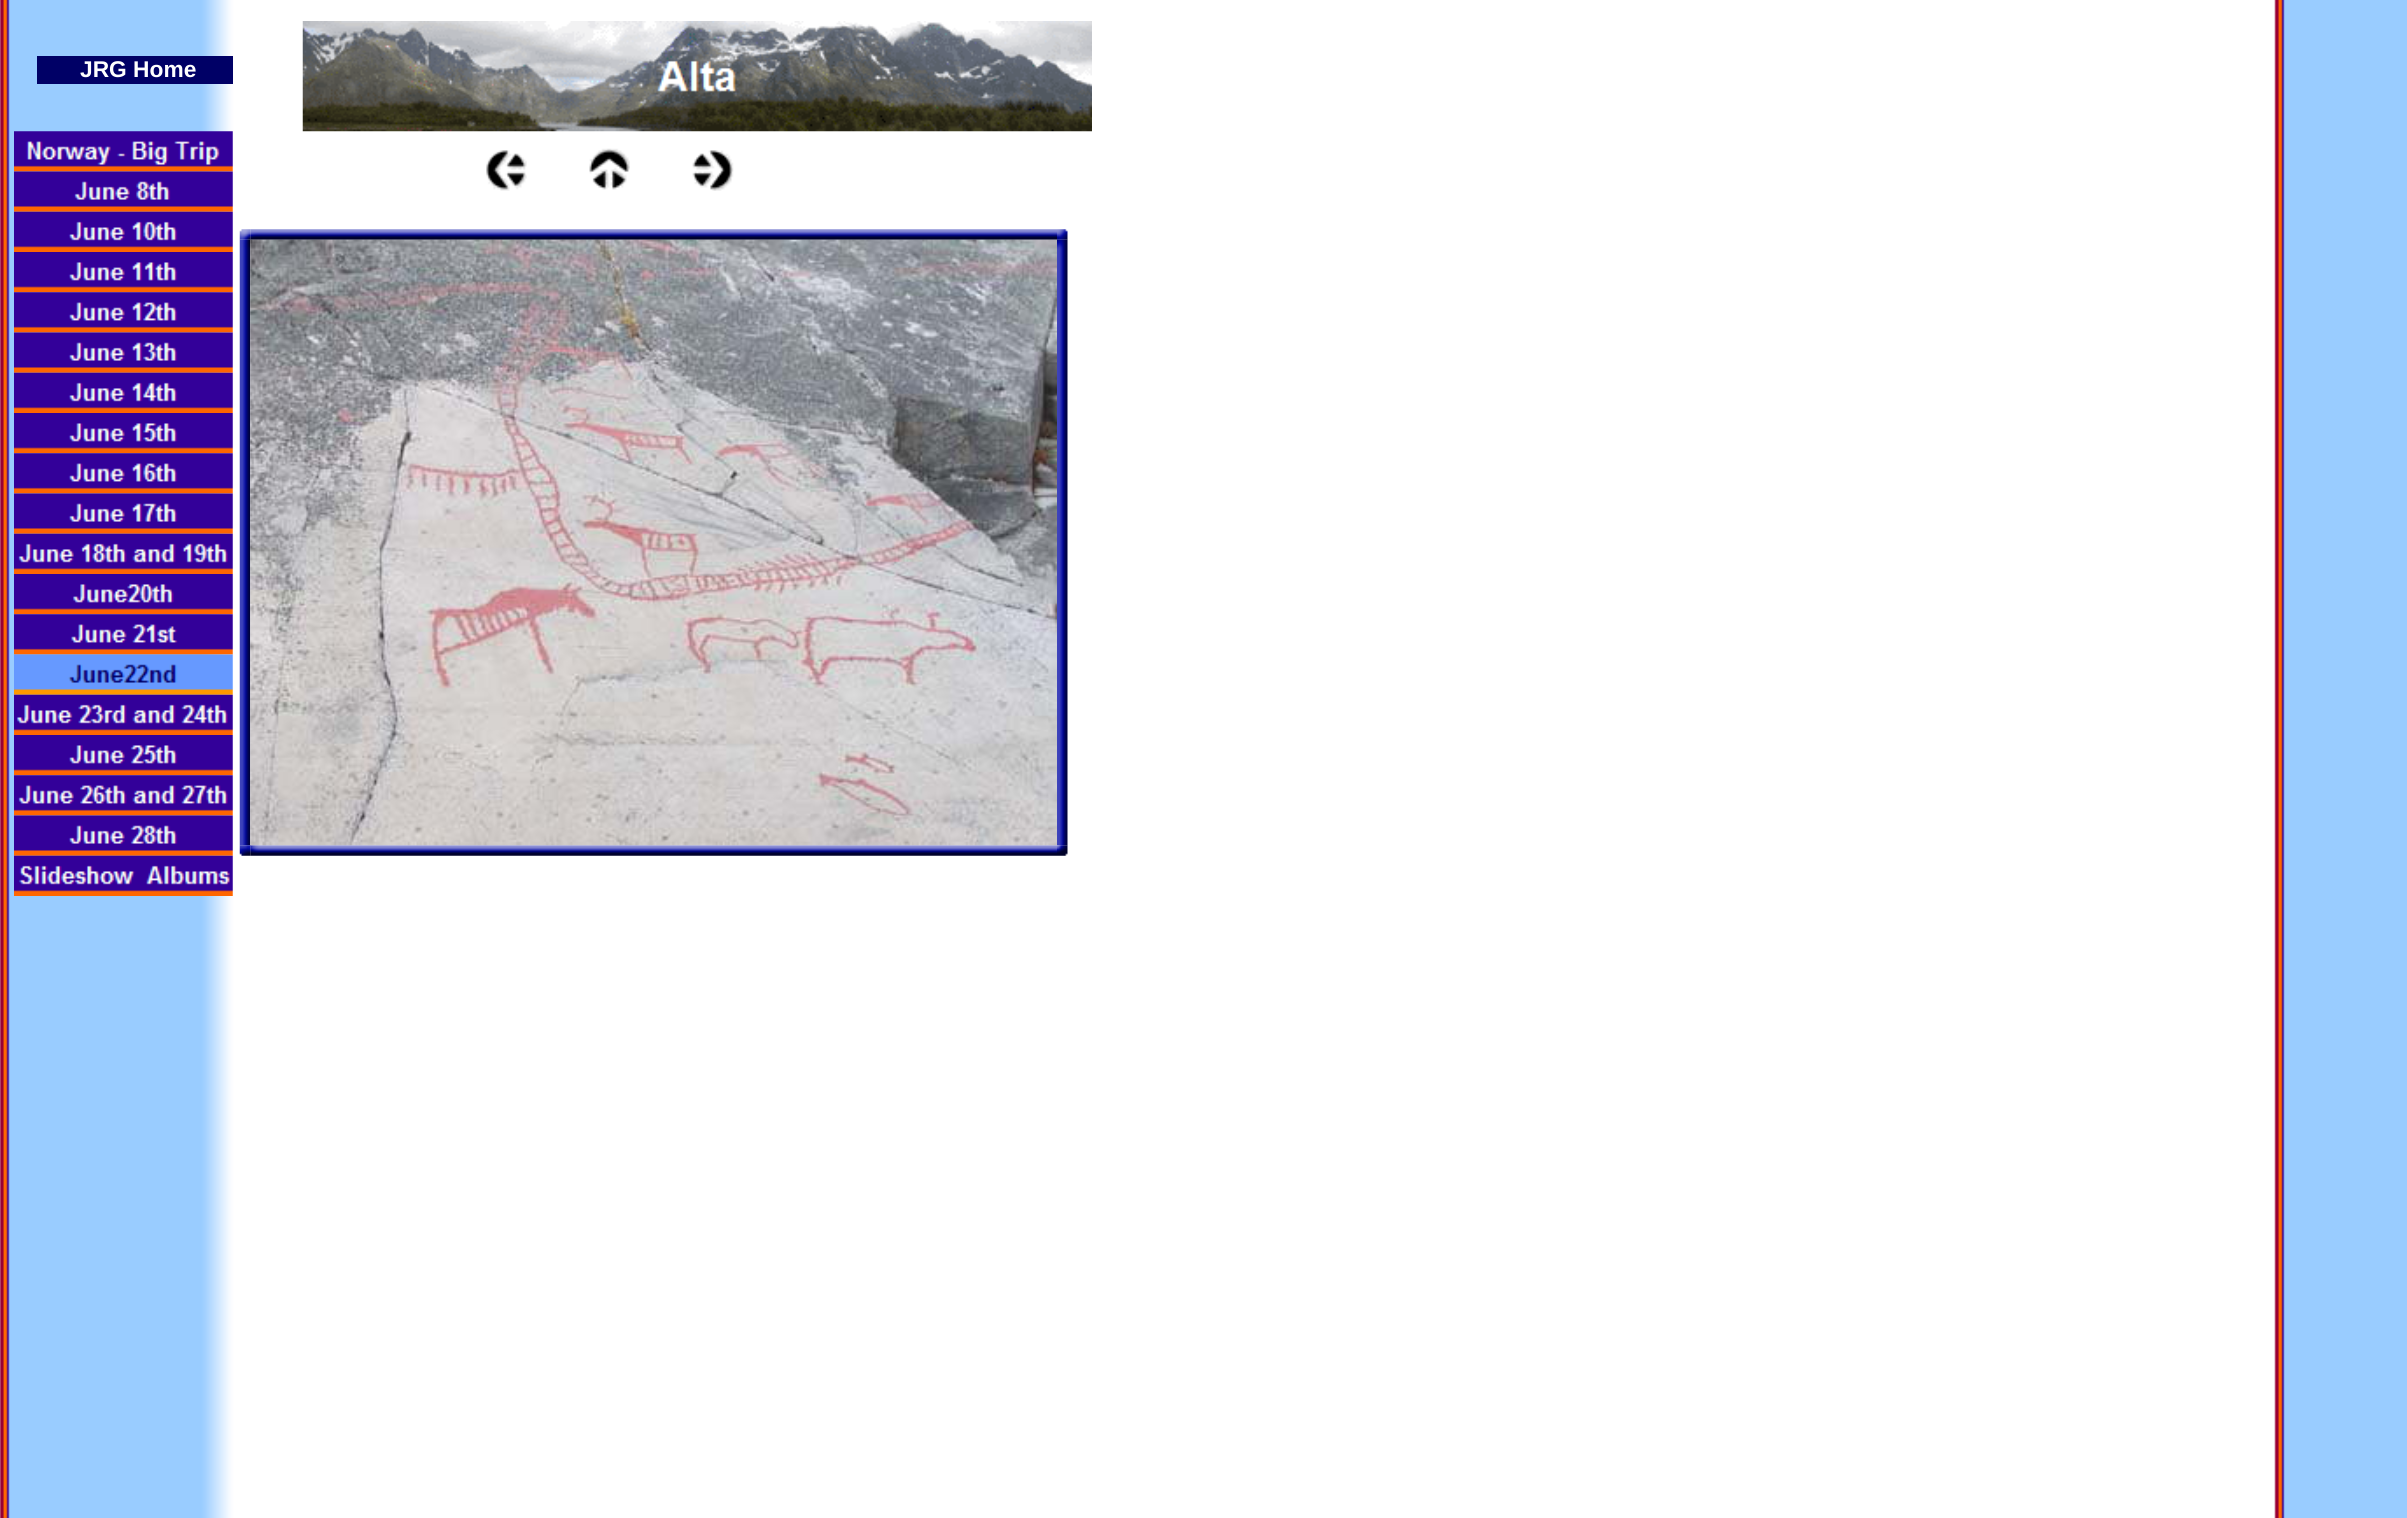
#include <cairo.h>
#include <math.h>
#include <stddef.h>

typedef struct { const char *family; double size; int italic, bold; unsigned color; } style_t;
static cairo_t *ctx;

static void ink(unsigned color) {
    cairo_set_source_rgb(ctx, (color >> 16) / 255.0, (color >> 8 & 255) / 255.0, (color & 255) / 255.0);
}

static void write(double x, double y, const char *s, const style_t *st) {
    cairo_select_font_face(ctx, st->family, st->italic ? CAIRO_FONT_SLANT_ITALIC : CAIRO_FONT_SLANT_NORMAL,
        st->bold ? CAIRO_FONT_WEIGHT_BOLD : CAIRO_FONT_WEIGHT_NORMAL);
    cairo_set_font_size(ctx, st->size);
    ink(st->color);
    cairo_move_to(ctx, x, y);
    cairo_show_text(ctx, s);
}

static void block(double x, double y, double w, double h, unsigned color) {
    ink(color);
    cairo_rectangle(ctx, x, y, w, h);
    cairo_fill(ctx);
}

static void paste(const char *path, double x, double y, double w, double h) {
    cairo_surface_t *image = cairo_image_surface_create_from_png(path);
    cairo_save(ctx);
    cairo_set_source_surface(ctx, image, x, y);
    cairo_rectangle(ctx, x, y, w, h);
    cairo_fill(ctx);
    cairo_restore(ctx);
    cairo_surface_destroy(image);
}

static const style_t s1 = {"Liberation Sans", 22.75, 0, 1, 0xffffff};

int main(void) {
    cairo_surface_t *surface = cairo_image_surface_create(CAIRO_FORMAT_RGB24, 2407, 1518);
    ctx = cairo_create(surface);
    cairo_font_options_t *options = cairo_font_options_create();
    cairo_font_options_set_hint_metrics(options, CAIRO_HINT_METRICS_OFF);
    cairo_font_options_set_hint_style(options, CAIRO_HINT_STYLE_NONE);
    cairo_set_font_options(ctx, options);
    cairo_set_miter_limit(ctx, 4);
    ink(0xffffff);
    cairo_paint(ctx);
    paste("pic1.png", 0, 0, 2407, 1518);
    block(37, 56, 196, 28, 0x000066);
    write(80, 77, "JRG Home", &s1);
    paste("pic2.png", 14, 131, 219, 41);
    paste("pic3.png", 14, 171, 219, 41);
    paste("pic4.png", 14, 211, 219, 41);
    paste("pic5.png", 14, 252, 219, 41);
    paste("pic6.png", 14, 292, 219, 41);
    paste("pic7.png", 14, 332, 219, 41);
    paste("pic8.png", 14, 372, 219, 41);
    paste("pic9.png", 14, 413, 219, 41);
    paste("pic10.png", 14, 453, 219, 41);
    paste("pic11.png", 14, 493, 219, 41);
    paste("pic12.png", 14, 533, 219, 41);
    paste("pic13.png", 14, 574, 219, 41);
    paste("pic14.png", 14, 614, 219, 41);
    paste("pic15.png", 14, 654, 219, 41);
    paste("pic16.png", 14, 694, 219, 41);
    paste("pic17.png", 14, 735, 219, 41);
    paste("pic18.png", 14, 775, 219, 41);
    paste("pic19.png", 14, 815, 219, 41);
    paste("pic20.png", 14, 855, 219, 41);
    paste("pic21.png", 302, 21, 790, 111);
    paste("pic22.png", 486, 150, 41, 41);
    paste("pic23.png", 589, 148, 41, 42);
    paste("pic24.png", 692, 150, 42, 41);
    paste("pic26.png", 250, 229, 807, 11);
    paste("pic28.png", 239, 239, 12, 607);
    paste("pic25.png", 239, 229, 12, 11);
    paste("pic30.png", 1057, 239, 11, 607);
    paste("pic27.png", 1057, 229, 11, 11);
    paste("pic32.png", 250, 845, 807, 11);
    paste("pic29.png", 250, 239, 807, 607);
    paste("pic31.png", 239, 845, 12, 11);
    paste("pic33.png", 1057, 845, 11, 11);
    cairo_surface_write_to_png(surface, "screenshot.png");
    cairo_font_options_destroy(options);
    cairo_destroy(ctx);
    cairo_surface_destroy(surface);
    return 0;
}
